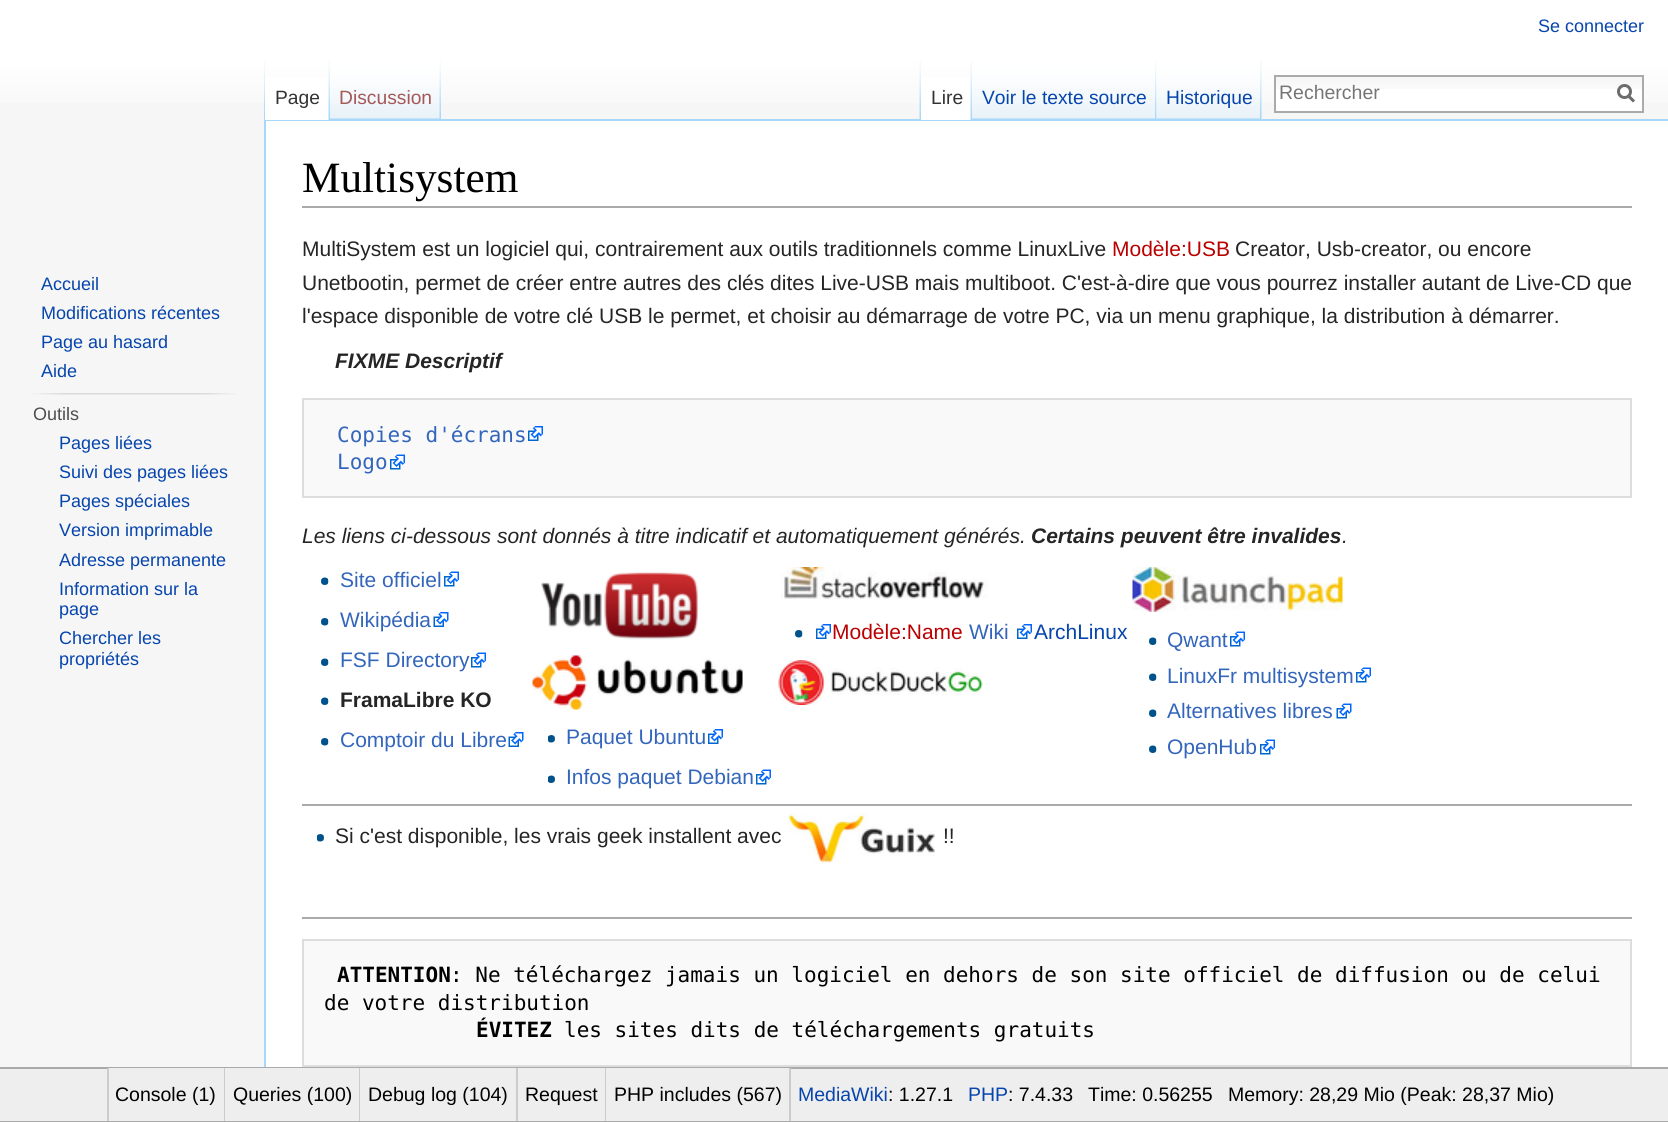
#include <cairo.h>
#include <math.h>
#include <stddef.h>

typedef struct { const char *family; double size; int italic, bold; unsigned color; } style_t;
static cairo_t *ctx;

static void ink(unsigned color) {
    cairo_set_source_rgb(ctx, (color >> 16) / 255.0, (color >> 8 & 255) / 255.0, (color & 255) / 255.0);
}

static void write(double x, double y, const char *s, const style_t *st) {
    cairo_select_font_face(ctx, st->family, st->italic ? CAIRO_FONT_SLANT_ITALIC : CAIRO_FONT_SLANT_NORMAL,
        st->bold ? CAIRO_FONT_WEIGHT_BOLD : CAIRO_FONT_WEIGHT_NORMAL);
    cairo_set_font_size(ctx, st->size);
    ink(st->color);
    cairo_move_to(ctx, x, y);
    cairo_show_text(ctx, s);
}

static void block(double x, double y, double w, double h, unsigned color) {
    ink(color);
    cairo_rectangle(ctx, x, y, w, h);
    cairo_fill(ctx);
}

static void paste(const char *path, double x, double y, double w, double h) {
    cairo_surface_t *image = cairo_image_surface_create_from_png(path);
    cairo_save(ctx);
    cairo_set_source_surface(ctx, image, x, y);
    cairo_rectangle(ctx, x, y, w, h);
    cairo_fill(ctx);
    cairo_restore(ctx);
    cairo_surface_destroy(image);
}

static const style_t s1 = {"Liberation Sans", 18, 0, 0, 0x0645ad};
static const style_t s2 = {"Liberation Sans", 19.25, 0, 0, 0x333333};
static const style_t s3 = {"Liberation Sans", 19.25, 0, 0, 0xa55858};
static const style_t s4 = {"Liberation Sans", 19.25, 0, 0, 0x0645ad};
static const style_t s5 = {"Liberation Sans", 19.5, 0, 0, 0x757575};
static const style_t s6 = {"Liberation Sans", 18, 0, 0, 0x4d4d4d};
static const style_t s7 = {"Liberation Serif", 43.25, 0, 0, 0x000000};
static const style_t s8 = {"Liberation Sans", 21, 0, 0, 0x252525};
static const style_t s9 = {"Liberation Sans", 21, 0, 0, 0xba0000};
static const style_t s10 = {"Liberation Sans", 21, 1, 1, 0x252525};
static const style_t s11 = {"DejaVu Sans Mono", 21, 0, 0, 0x3366bb};
static const style_t s12 = {"Liberation Sans", 21, 1, 0, 0x252525};
static const style_t s13 = {"Liberation Sans", 21, 0, 0, 0x3366bb};
static const style_t s14 = {"Liberation Sans", 21, 0, 1, 0x252525};
static const style_t s15 = {"Liberation Sans", 21, 0, 0, 0x0645ad};
static const style_t s16 = {"DejaVu Sans Mono", 21, 0, 1, 0x000000};
static const style_t s17 = {"DejaVu Sans Mono", 21, 0, 0, 0x000000};
static const style_t s18 = {"Liberation Sans", 19.5, 0, 0, 0x000000};
static const style_t s19 = {"Liberation Sans", 19.5, 0, 0, 0x0645ad};

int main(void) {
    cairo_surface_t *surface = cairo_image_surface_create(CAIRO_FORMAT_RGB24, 1668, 1122);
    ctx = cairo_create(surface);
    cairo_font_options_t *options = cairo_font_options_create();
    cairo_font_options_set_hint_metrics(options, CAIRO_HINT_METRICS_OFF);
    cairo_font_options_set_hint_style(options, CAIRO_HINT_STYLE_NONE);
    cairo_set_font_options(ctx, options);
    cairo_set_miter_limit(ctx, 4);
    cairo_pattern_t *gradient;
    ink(0xf6f6f6);
    cairo_paint(ctx);
    gradient = cairo_pattern_create_linear(834, 0, 834, 120);
    cairo_pattern_add_color_stop_rgba(gradient, 0.5, 1, 1, 1, 1);
    cairo_pattern_add_color_stop_rgba(gradient, 1, 0.965, 0.965, 0.965, 1);
    cairo_set_source(ctx, gradient);
    cairo_pattern_destroy(gradient);
    cairo_rectangle(ctx, 0, 0, 1668, 103);
    cairo_fill(ctx);
    write(1538, 32, "Se connecter", &s1);
    paste("pic1.png", 264, 60, 1, 59);
    block(264, 119, 1404, 2, 0xa7d7f9);
    block(264, 119, 2, 948, 0xa7d7f9);
    block(265, 77, 65, 43, 0xffffff);
    paste("pic2.png", 328, 61, 2, 59);
    write(275, 104, "Page", &s2);
    paste("pic3.png", 330, 60, 111, 60);
    paste("pic4.png", 439, 61, 2, 58);
    write(339, 104, "Discussion", &s3);
    paste("pic5.png", 919, 60, 2, 59);
    block(921, 77, 51, 43, 0xffffff);
    paste("pic2.png", 970, 61, 2, 59);
    write(931, 104, "Lire", &s2);
    paste("pic6.png", 972, 60, 185, 60);
    paste("pic7.png", 1155, 61, 2, 59);
    write(982, 104, "Voir le texte source", &s4);
    block(1261, 60, 1, 60, 0xf3f3f3);
    paste("pic8.png", 1156, 60, 106, 60);
    paste("pic7.png", 1260, 61, 2, 59);
    write(1166, 104, "Historique", &s4);
    block(1276, 89, 366, 22, 0xffffff);
    paste("pic9.png", 1276, 77, 366, 12);
    cairo_rectangle(ctx, 1275, 76, 368, 36);
    ink(0xaaaaaa);
    cairo_stroke(ctx);
    write(1279, 99, "Rechercher", &s5);
    cairo_new_path(ctx);
    cairo_move_to(ctx, 1634, 101.5);
    cairo_line_to(ctx, 1628, 95.5);
    ink(0x6c6c6c);
    cairo_set_line_width(ctx, 3);
    cairo_stroke(ctx);
    cairo_arc(ctx, 1624.5, 91.5, 6, 0, 2 * M_PI);
    cairo_stroke(ctx);
    write(41, 290, "Accueil", &s1);
    write(41, 319, "Modifications récentes", &s1);
    write(41, 348, "Page au hasard", &s1);
    write(41, 377, "Aide", &s1);
    paste("pic10.png", 32, 393, 204, 2);
    write(33, 420, "Outils", &s6);
    write(59, 449, "Pages liées", &s1);
    write(59, 478, "Suivi des pages liées", &s1);
    write(59, 507, "Pages spéciales", &s1);
    write(59, 536, "Version imprimable", &s1);
    write(59, 566, "Adresse permanente", &s1);
    write(59, 595, "Information sur la", &s1);
    write(59, 615, "page", &s1);
    write(59, 644, "Chercher les", &s1);
    write(59, 665, "propriétés", &s1);
    block(266, 121, 1402, 946, 0xffffff);
    block(302, 206, 1330, 2, 0xaaaaaa);
    write(302, 192, "Multisystem", &s7);
    write(302, 256, "MultiSystem est un logiciel qui, contrairement aux outils traditionnels comme LinuxLive", &s8);
    write(1112, 256, "Modèle:USB", &s9);
    write(1235, 256, "Creator, Usb-creator, ou encore", &s8);
    write(302, 290, "Unetbootin, permet de créer entre autres des clés dites Live-USB mais multiboot. C'est-à-dire que vous pourrez installer autant de Live-CD que", &s8);
    write(302, 323, "l'espace disponible de votre clé USB le permet, et choisir au démarrage de votre PC, via un menu graphique, la distribution à démarrer.", &s8);
    write(335, 368, "FIXME Descriptif", &s10);
    ink(0xf9f9f9);
    cairo_rectangle(ctx, 303, 399, 1328, 98);
    cairo_fill_preserve(ctx);
    ink(0xdddddd);
    cairo_set_line_width(ctx, 2);
    cairo_stroke(ctx);
    write(337, 442, "Copies d'écrans", &s11);
    paste("pic11.png", 528, 426, 15, 15);
    write(337, 469, "Logo", &s11);
    paste("pic12.png", 390, 454, 15, 16);
    write(302, 543, "Les liens ci-dessous sont donnés à titre indicatif et automatiquement générés.", &s12);
    write(1031, 543, "Certains peuvent être invalides", &s10);
    write(1342, 543, ".", &s12);
    paste("pic13.png", 321, 577, 8, 8);
    write(340, 587, "Site officiel", &s13);
    paste("pic14.png", 444, 571, 15, 16);
    paste("pic15.png", 321, 618, 8, 8);
    write(340, 627, "Wikipédia", &s13);
    paste("pic16.png", 433, 612, 16, 15);
    paste("pic13.png", 321, 658, 8, 8);
    write(340, 667, "FSF Directory", &s13);
    paste("pic14.png", 471, 652, 15, 16);
    paste("pic13.png", 321, 697, 8, 8);
    write(340, 707, "FramaLibre KO", &s14);
    paste("pic15.png", 321, 738, 8, 8);
    write(340, 747, "Comptoir du Libre", &s13);
    paste("pic16.png", 508, 732, 16, 15);
    paste("pic17.png", 541, 572, 157, 68);
    paste("pic18.png", 532, 655, 211, 55);
    paste("pic19.png", 548, 735, 7, 8);
    write(566, 744, "Paquet Ubuntu", &s13);
    paste("pic20.png", 708, 729, 15, 15);
    paste("pic21.png", 548, 775, 7, 8);
    write(566, 784, "Infos paquet Debian", &s13);
    paste("pic14.png", 756, 769, 15, 16);
    paste("pic22.png", 781, 567, 207, 32);
    paste("pic15.png", 795, 630, 8, 8);
    paste("pic20.png", 816, 624, 15, 15);
    write(832, 639, "Modèle:Name", &s9);
    write(969, 639, "Wiki", &s13);
    paste("pic20.png", 1017, 624, 15, 15);
    write(1034, 639, "ArchLinux", &s15);
    paste("pic23.png", 778, 660, 205, 45);
    paste("pic24.png", 1132, 567, 211, 45);
    paste("pic13.png", 1149, 637, 8, 8);
    write(1167, 647, "Qwant", &s13);
    paste("pic14.png", 1230, 631, 15, 16);
    paste("pic13.png", 1149, 673, 8, 8);
    write(1167, 683, "LinuxFr multisystem", &s13);
    paste("pic14.png", 1356, 667, 15, 16);
    paste("pic13.png", 1149, 709, 8, 8);
    write(1167, 718, "Alternatives libres", &s13);
    paste("pic25.png", 1336, 703, 16, 16);
    paste("pic13.png", 1149, 745, 8, 8);
    write(1167, 754, "OpenHub", &s13);
    paste("pic14.png", 1260, 739, 15, 16);
    block(302, 804, 1330, 2, 0xaaaaaa);
    paste("pic19.png", 317, 834, 7, 8);
    write(335, 843, "Si c'est disponible, les vrais geek installent avec", &s8);
    paste("pic26.png", 788, 813, 147, 50);
    write(943, 843, "!!", &s8);
    block(302, 917, 1330, 2, 0xaaaaaa);
    ink(0xf9f9f9);
    cairo_rectangle(ctx, 303, 940, 1328, 126);
    cairo_fill_preserve(ctx);
    ink(0xdddddd);
    cairo_stroke(ctx);
    write(337, 982, "ATTENTION", &s16);
    write(450, 982, ": Ne téléchargez jamais un logiciel en dehors de son site officiel de diffusion ou de celui", &s17);
    write(324, 1010, "de votre distribution", &s17);
    write(476, 1037, "ÉVITEZ", &s16);
    write(564, 1037, "les sites dits de téléchargements gratuits", &s17);
    block(0, 1069, 1668, 52, 0xeeeeee);
    block(0, 1067, 1668, 2, 0xaaaaaa);
    block(0, 1121, 1668, 1, 0xaaaaaa);
    block(109, 1068, 115, 1, 0xeeeeee);
    block(224, 1068, 1, 53, 0xcccccc);
    block(107, 1068, 2, 53, 0xcccccc);
    write(115, 1101, "Console (1)", &s18);
    block(225, 1068, 134, 1, 0xeeeeee);
    block(359, 1068, 1, 53, 0xcccccc);
    write(233, 1101, "Queries (100)", &s18);
    block(360, 1068, 156, 1, 0xeeeeee);
    block(516, 1068, 2, 53, 0xcccccc);
    write(368, 1101, "Debug log (104)", &s18);
    block(518, 1068, 87, 1, 0xeeeeee);
    block(605, 1068, 1, 53, 0xcccccc);
    write(525, 1101, "Request", &s18);
    block(606, 1068, 183, 1, 0xeeeeee);
    block(789, 1068, 2, 53, 0xcccccc);
    write(614, 1101, "PHP includes (567)", &s18);
    write(798, 1101, "MediaWiki", &s19);
    write(888, 1101, ": 1.27.1", &s18);
    write(968, 1101, "PHP", &s19);
    write(1008, 1101, ": 7.4.33", &s18);
    write(1088, 1101, "Time: 0.56255", &s18);
    write(1228, 1101, "Memory: 28,29 Mio (Peak: 28,37 Mio)", &s18);
    cairo_surface_write_to_png(surface, "screenshot.png");
    cairo_font_options_destroy(options);
    cairo_destroy(ctx);
    cairo_surface_destroy(surface);
    return 0;
}
